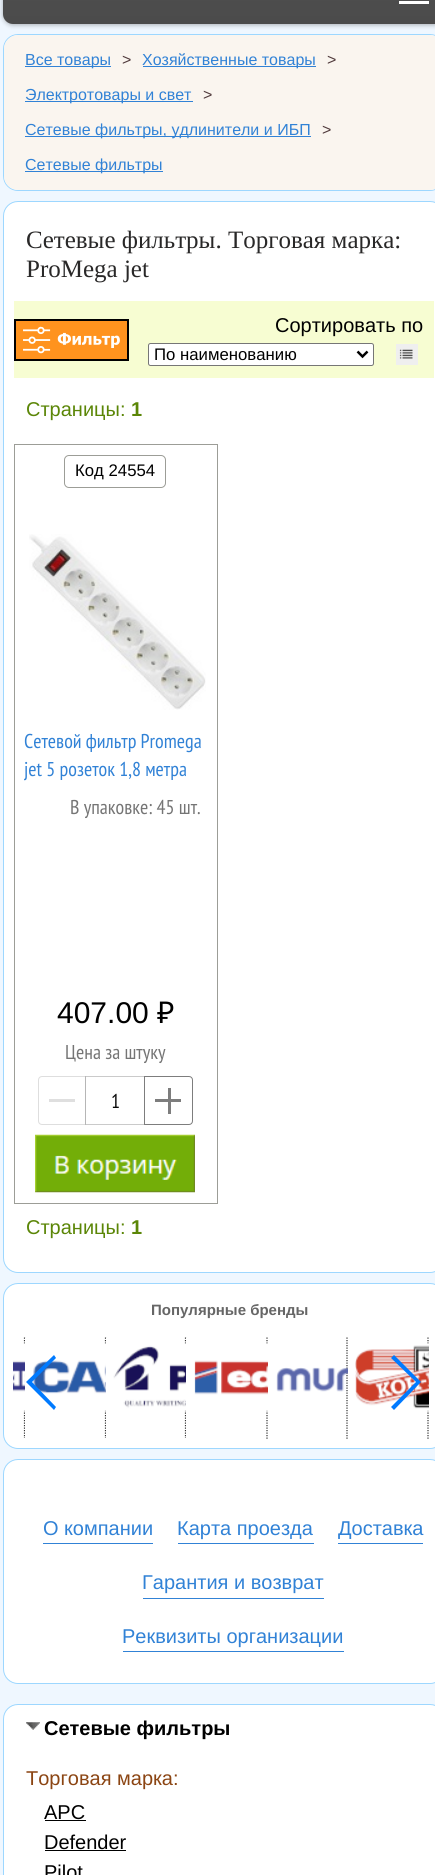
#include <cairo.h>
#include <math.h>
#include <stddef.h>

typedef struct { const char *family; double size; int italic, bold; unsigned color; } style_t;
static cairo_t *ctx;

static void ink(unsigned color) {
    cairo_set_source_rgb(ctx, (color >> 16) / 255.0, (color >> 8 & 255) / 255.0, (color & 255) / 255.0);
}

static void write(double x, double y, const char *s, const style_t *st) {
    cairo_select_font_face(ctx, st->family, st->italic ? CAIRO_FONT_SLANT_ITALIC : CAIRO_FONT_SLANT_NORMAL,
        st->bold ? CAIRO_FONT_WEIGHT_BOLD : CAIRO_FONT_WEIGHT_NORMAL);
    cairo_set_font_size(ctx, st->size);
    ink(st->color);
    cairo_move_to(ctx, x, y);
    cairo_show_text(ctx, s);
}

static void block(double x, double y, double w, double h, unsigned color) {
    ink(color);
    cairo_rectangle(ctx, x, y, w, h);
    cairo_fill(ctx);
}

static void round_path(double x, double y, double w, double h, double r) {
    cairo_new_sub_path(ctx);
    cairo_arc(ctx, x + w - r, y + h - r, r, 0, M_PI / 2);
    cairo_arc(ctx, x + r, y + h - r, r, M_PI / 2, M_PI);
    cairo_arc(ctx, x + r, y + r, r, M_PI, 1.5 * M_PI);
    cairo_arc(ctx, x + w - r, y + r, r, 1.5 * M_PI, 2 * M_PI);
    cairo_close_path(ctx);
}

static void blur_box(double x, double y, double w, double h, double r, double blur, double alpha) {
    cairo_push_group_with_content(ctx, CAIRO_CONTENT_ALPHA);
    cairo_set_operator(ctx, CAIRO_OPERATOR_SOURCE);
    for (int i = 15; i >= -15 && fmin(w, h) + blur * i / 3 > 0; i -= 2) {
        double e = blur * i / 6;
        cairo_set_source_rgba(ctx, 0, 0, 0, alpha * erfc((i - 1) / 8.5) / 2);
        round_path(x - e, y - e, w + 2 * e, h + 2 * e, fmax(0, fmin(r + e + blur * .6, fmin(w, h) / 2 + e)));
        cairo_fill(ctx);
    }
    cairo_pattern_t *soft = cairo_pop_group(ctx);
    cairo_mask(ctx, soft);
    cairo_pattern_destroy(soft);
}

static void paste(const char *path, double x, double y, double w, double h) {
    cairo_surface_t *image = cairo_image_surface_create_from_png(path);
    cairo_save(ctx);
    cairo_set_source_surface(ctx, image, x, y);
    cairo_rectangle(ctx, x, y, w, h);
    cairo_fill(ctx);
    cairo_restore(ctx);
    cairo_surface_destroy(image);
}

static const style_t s1 = {"Liberation Sans", 16, 0, 0, 0x3182d6};
static const style_t s2 = {"Liberation Sans", 16, 0, 0, 0x503a3c};
static const style_t s3 = {"Liberation Serif", 25, 0, 0, 0x292828};
static const style_t s4 = {"Liberation Sans", 20, 0, 0, 0x000000};
static const style_t s5 = {"Liberation Sans", 16.75, 0, 0, 0x000000};
static const style_t s6 = {"Liberation Sans", 20, 0, 0, 0x5b8607};
static const style_t s7 = {"Liberation Sans", 20, 0, 1, 0x5b8607};
static const style_t s8 = {"PT Sans Narrow", 20, 0, 0, 0x3182d6};
static const style_t s9 = {"PT Sans Narrow", 20, 0, 0, 0x757575};
static const style_t s10 = {"Liberation Sans", 30, 0, 0, 0x000000};
static const style_t s11 = {"Noto Sans", 30, 0, 0, 0x000000};
static const style_t s12 = {"PT Sans Narrow", 20, 0, 0, 0x0a0a0a};
static const style_t s13 = {"Liberation Sans", 15, 0, 1, 0x666666};
static const style_t s14 = {"Liberation Sans", 20, 0, 0, 0x3182d6};
static const style_t s15 = {"Liberation Sans", 20, 0, 1, 0x000000};
static const style_t s16 = {"Liberation Sans", 20, 0, 0, 0x8b4513};

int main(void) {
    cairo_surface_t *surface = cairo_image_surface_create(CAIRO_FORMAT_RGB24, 435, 1875);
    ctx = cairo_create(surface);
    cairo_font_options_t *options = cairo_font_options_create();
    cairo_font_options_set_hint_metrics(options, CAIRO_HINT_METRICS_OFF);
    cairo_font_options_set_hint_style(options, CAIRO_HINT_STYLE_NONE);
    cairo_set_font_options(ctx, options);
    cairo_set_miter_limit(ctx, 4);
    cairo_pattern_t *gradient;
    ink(0xeff7ff);
    cairo_paint(ctx);
    ink(0x000000);
    blur_box(3, -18, 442, 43, 10, 2.5, 0.3);
    gradient = cairo_pattern_create_linear(224, -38, 224, 24);
    cairo_pattern_add_color_stop_rgba(gradient, 0, 0.31, 0.31, 0.31, 1);
    cairo_pattern_add_color_stop_rgba(gradient, 1, 0.294, 0.294, 0.294, 1);
    cairo_set_source(ctx, gradient);
    cairo_pattern_destroy(gradient);
    round_path(3, -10, 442, 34, 10);
    cairo_fill(ctx);
    block(399, 1, 30, 3, 0xffffff);
    round_path(3.5, 34.5, 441, 156, 14.5);
    ink(0x9dd7ff);
    cairo_set_line_width(ctx, 1);
    cairo_stroke(ctx);
    ink(0xfaf5ef);
    round_path(4, 35, 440, 155, 14);
    cairo_fill(ctx);
    block(25, 66, 86, 1, 0x3182d6);
    write(25, 65, "Все товары", &s1);
    write(122, 65, ">", &s2);
    block(143, 66, 173, 1, 0x3182d6);
    write(142, 65, "Хозяйственные товары", &s1);
    write(327, 65, ">", &s2);
    block(25, 101, 168, 1, 0x3182d6);
    write(25, 100, "Электротовары и свет", &s1);
    write(203, 100, ">", &s2);
    block(25, 136, 286, 1, 0x3182d6);
    write(25, 135, "Сетевые фильтры, удлинители и ИБП", &s1);
    write(322, 135, ">", &s2);
    block(25, 171, 138, 1, 0x3182d6);
    write(25, 170, "Сетевые фильтры", &s1);
    ink(0xffffff);
    round_path(3.5, 201.5, 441, 1071, 14.5);
    cairo_fill_preserve(ctx);
    ink(0x9dd7ff);
    cairo_stroke(ctx);
    write(26, 248, "Сетевые фильтры. Торговая марка:", &s3);
    write(26, 277, "ProMega jet", &s3);
    block(14, 301, 420, 77, 0xf7fdd2);
    paste("pic1.png", 14, 319, 115, 42);
    write(275, 332, "Сортировать по", &s4);
    ink(0xffffff);
    round_path(148.5, 343.5, 225, 22, 2);
    cairo_fill_preserve(ctx);
    ink(0x767676);
    cairo_stroke(ctx);
    cairo_new_path(ctx);
    cairo_move_to(ctx, 357.5, 351.5);
    cairo_line_to(ctx, 362.5, 356.5);
    cairo_line_to(ctx, 367.5, 351.5);
    ink(0x000000);
    cairo_set_line_width(ctx, 2.5);
    cairo_stroke(ctx);
    write(154, 360, "По наименованию", &s5);
    block(396, 344, 22, 21, 0xefefef);
    paste("pic2.png", 399, 349, 14, 10);
    write(26, 416, "Страницы:", &s6);
    write(131, 416, "1", &s7);
    cairo_rectangle(ctx, 14.5, 444.5, 203, 759);
    ink(0x9c9d97);
    cairo_set_line_width(ctx, 1);
    cairo_stroke(ctx);
    round_path(64.5, 455.5, 101, 32, 4.5);
    cairo_stroke(ctx);
    write(75, 476, "Код 24554", &s5);
    paste("pic3.png", 29, 534, 177, 176);
    write(24, 748, "Сетевой фильтр Promega", &s8);
    write(24, 776, "jet 5 розеток 1,8 метра", &s8);
    write(70, 814, "В упаковке: 45 шт.", &s9);
    write(57, 1023, "407.00", &s10);
    write(157, 1023, "₽", &s11);
    write(65, 1059, "Цена за штуку", &s9);
    cairo_rectangle(ctx, 85.5, 1076.5, 59, 48);
    ink(0xcacaca);
    cairo_stroke(ctx);
    cairo_new_path(ctx);
    cairo_move_to(ctx, 42, 1076.5);
    cairo_line_to(ctx, 85.5, 1076.5);
    cairo_line_to(ctx, 85.5, 1124.5);
    cairo_line_to(ctx, 42, 1124.5);
    cairo_curve_to(ctx, 40, 1124.5, 38.5, 1123, 38.5, 1121);
    cairo_line_to(ctx, 38.5, 1080);
    cairo_curve_to(ctx, 38.5, 1078, 40, 1076.5, 42, 1076.5);
    cairo_close_path(ctx);
    cairo_set_source_rgba(ctx, 0.49, 0.49, 0.49, 0.25);
    cairo_stroke(ctx);
    block(49, 1099, 26, 3, 0xdfdfdf);
    write(111, 1108, "1", &s12);
    cairo_new_path(ctx);
    cairo_move_to(ctx, 144.5, 1076.5);
    cairo_line_to(ctx, 189, 1076.5);
    cairo_curve_to(ctx, 191, 1076.5, 192.5, 1078, 192.5, 1080);
    cairo_line_to(ctx, 192.5, 1121);
    cairo_curve_to(ctx, 192.5, 1123, 191, 1124.5, 189, 1124.5);
    cairo_line_to(ctx, 144.5, 1124.5);
    cairo_close_path(ctx);
    ink(0x7d7d7d);
    cairo_stroke(ctx);
    block(155, 1099, 26, 3, 0x7d7d7d);
    block(168, 1088, 3, 26, 0x7d7d7d);
    paste("pic4.png", 35, 1134, 160, 59);
    write(26, 1234, "Страницы:", &s6);
    write(131, 1234, "1", &s7);
    ink(0xffffff);
    round_path(3.5, 1283.5, 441, 165, 14.5);
    cairo_fill_preserve(ctx);
    ink(0x9dd7ff);
    cairo_stroke(ctx);
    write(151, 1315, "Популярные бренды", &s13);
    cairo_save(ctx);
    cairo_rectangle(ctx, 14, 1328, 420, 110);
    cairo_clip(ctx);
    cairo_new_path(ctx);
    cairo_move_to(ctx, 24.5, 1337.5);
    cairo_line_to(ctx, 24.5, 1440);
    ink(0x333333);
    cairo_set_line_width(ctx, 1.2);
    cairo_set_dash(ctx, (double[]){1.25, 1.25}, 2, 0);
    cairo_stroke(ctx);
    cairo_restore(ctx);
    paste("pic5.png", 13, 1343, 12, 68);
    block(25, 1338, 1, 100, 0xffffff);
    cairo_save(ctx);
    cairo_rectangle(ctx, 14, 1328, 420, 110);
    cairo_clip(ctx);
    cairo_new_path(ctx);
    cairo_move_to(ctx, 105.5, 1337.5);
    cairo_line_to(ctx, 105.5, 1440);
    ink(0x333333);
    cairo_set_line_width(ctx, 1.2);
    cairo_set_dash(ctx, (double[]){1.25, 1.25}, 2, 0);
    cairo_stroke(ctx);
    cairo_restore(ctx);
    paste("pic6.png", 33, 1343, 73, 68);
    block(106, 1338, 1, 100, 0xffffff);
    cairo_save(ctx);
    cairo_rectangle(ctx, 14, 1328, 420, 110);
    cairo_clip(ctx);
    cairo_new_path(ctx);
    cairo_move_to(ctx, 185.5, 1337.5);
    cairo_line_to(ctx, 185.5, 1440);
    ink(0x333333);
    cairo_set_line_width(ctx, 1.2);
    cairo_set_dash(ctx, (double[]){1.25, 1.25}, 2, 0);
    cairo_stroke(ctx);
    cairo_restore(ctx);
    paste("pic7.png", 113, 1343, 73, 68);
    block(186, 1338, 1, 100, 0xffffff);
    cairo_new_path(ctx);
    cairo_move_to(ctx, 267, 1337.5);
    cairo_line_to(ctx, 267, 1440);
    ink(0x333333);
    cairo_set_line_width(ctx, 1.2);
    cairo_set_dash(ctx, (double[]){1.25, 1.25}, 2, 0);
    cairo_stroke(ctx);
    paste("pic8.png", 194, 1343, 74, 68);
    cairo_new_path(ctx);
    cairo_move_to(ctx, 347, 1337.5);
    cairo_line_to(ctx, 347, 1440);
    cairo_stroke(ctx);
    paste("pic9.png", 276, 1367, 72, 25);
    cairo_new_path(ctx);
    cairo_move_to(ctx, 428, 1337.5);
    cairo_line_to(ctx, 428, 1440);
    cairo_stroke(ctx);
    paste("pic10.png", 355, 1343, 74, 68);
    ink(0x007aff);
    cairo_new_path(ctx);
    cairo_move_to(ctx, 26, 1382);
    cairo_line_to(ctx, 54, 1355);
    cairo_line_to(ctx, 56, 1358);
    cairo_line_to(ctx, 32, 1382);
    cairo_line_to(ctx, 56, 1407);
    cairo_line_to(ctx, 54, 1410);
    cairo_close_path(ctx);
    cairo_fill(ctx);
    cairo_new_path(ctx);
    cairo_move_to(ctx, 421, 1382);
    cairo_line_to(ctx, 394, 1410);
    cairo_line_to(ctx, 391, 1407);
    cairo_line_to(ctx, 416, 1382);
    cairo_line_to(ctx, 391, 1358);
    cairo_line_to(ctx, 394, 1355);
    cairo_close_path(ctx);
    cairo_fill(ctx);
    ink(0xffffff);
    round_path(3.5, 1459.5, 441, 224, 14.5);
    cairo_fill_preserve(ctx);
    ink(0x9dd7ff);
    cairo_set_line_width(ctx, 1);
    cairo_set_dash(ctx, NULL, 0, 0);
    cairo_stroke(ctx);
    block(43, 1543, 110, 1, 0x3182d6);
    write(43, 1535, "О компании", &s14);
    block(178, 1543, 136, 1, 0x3182d6);
    write(177, 1535, "Карта проезда", &s14);
    block(338, 1543, 85, 1, 0x3182d6);
    write(338, 1535, "Доставка", &s14);
    block(143, 1598, 181, 1, 0x3182d6);
    write(142, 1589, "Гарантия и возврат", &s14);
    block(123, 1651, 221, 1, 0x3182d6);
    write(122, 1643, "Реквизиты организации", &s14);
    ink(0xffffff);
    round_path(3.5, 1704.5, 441, 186, 14.5);
    cairo_fill_preserve(ctx);
    ink(0x9dd7ff);
    cairo_stroke(ctx);
    paste("pic11.png", 26, 1722, 14, 8);
    write(44, 1735, "Сетевые фильтры", &s15);
    write(26, 1785, "Торговая марка:", &s16);
    write(44, 1819, "APC", &s4);
    block(45, 1820, 41, 1, 0x000000);
    write(44, 1849, "Defender", &s4);
    block(45, 1850, 81, 1, 0x000000);
    write(44, 1879, "Pilot", &s4);
    cairo_surface_write_to_png(surface, "screenshot.png");
    cairo_font_options_destroy(options);
    cairo_destroy(ctx);
    cairo_surface_destroy(surface);
    return 0;
}
